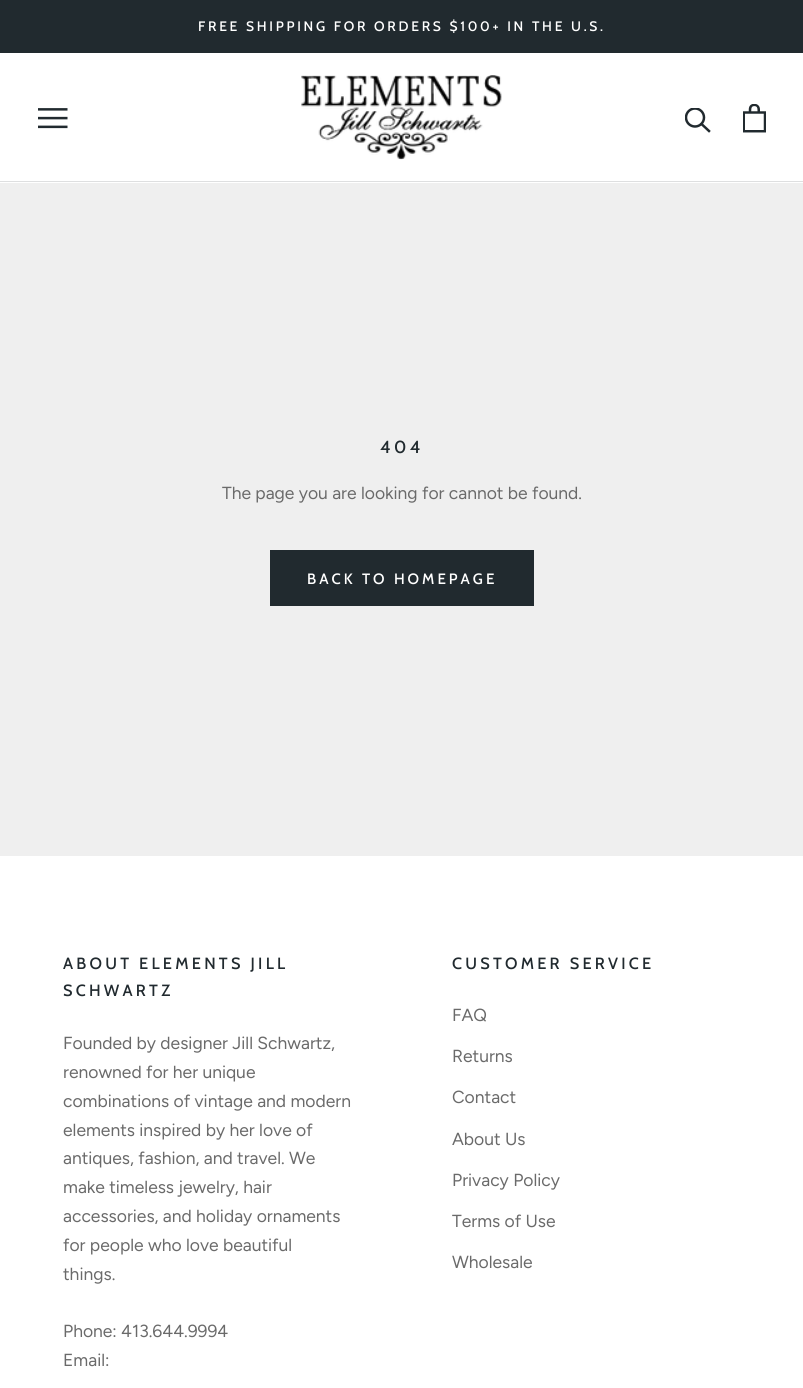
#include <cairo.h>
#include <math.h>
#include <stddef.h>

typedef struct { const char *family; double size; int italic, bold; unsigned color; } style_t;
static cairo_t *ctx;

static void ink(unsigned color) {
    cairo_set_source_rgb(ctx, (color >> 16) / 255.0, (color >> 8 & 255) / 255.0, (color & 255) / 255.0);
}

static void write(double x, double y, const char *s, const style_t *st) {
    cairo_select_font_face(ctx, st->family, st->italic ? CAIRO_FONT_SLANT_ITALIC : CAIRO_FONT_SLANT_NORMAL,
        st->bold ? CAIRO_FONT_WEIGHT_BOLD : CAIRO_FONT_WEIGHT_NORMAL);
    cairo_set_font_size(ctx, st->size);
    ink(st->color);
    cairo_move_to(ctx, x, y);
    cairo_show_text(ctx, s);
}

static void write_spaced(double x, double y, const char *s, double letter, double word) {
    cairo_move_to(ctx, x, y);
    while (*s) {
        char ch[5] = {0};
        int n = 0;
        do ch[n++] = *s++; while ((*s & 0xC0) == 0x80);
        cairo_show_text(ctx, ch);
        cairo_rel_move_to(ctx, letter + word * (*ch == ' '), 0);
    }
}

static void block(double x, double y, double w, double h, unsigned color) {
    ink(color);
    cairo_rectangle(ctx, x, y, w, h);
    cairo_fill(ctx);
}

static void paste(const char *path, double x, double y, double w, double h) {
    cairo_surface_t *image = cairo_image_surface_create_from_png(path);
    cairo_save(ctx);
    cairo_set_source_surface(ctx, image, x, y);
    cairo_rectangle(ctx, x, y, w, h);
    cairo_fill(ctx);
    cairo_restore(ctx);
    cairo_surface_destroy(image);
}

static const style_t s1 = {"Figtree", 17.5, 0, 0, 0x6a6a6a};

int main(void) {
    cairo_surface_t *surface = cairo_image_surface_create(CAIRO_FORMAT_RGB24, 803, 1388);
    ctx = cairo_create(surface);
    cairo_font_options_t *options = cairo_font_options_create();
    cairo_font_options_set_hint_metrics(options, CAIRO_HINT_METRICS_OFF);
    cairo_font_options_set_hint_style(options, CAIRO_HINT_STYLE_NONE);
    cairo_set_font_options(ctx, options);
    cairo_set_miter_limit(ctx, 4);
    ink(0xefefef);
    cairo_paint(ctx);
    block(0, 0, 803, 53, 0x212a2f);
    cairo_select_font_face(ctx, "Cabin Medium", CAIRO_FONT_SLANT_NORMAL, CAIRO_FONT_WEIGHT_NORMAL);
    cairo_set_font_size(ctx, 13.75);
    ink(0xffffff);
    write_spaced(198, 31, "FREE SHIPPING FOR ORDERS $100+ IN THE U.S.", 2.75, 0);
    block(0, 53, 803, 130, 0xffffff);
    block(0, 181, 803, 1, 0xdedfe0);
    paste("pic1.png", 38, 108, 30, 21);
    paste("pic2.png", 301, 75, 201, 85);
    cairo_new_path(ctx);
    cairo_move_to(ctx, 709, 131);
    cairo_line_to(ctx, 701.5, 124);
    ink(0x212a2f);
    cairo_set_line_width(ctx, 2.5);
    cairo_set_line_cap(ctx, CAIRO_LINE_CAP_SQUARE);
    cairo_stroke(ctx);
    cairo_save(ctx);
    cairo_rectangle(ctx, 685, 108, 26, 26);
    cairo_clip(ctx);
    cairo_arc(ctx, 695, 117.5, 9, 0, 2 * M_PI);
    cairo_set_line_cap(ctx, CAIRO_LINE_CAP_BUTT);
    cairo_stroke(ctx);
    cairo_restore(ctx);
    paste("pic3.png", 743, 104, 23, 29);
    cairo_set_font_size(ctx, 17.5);
    write_spaced(380, 453, "404", 3.5, 0);
    write(222, 499, "The page you are looking for cannot be found.", &s1);
    cairo_rectangle(ctx, 270.5, 550.5, 263, 55);
    ink(0x212a2f);
    cairo_set_line_width(ctx, 1);
    cairo_set_line_cap(ctx, CAIRO_LINE_CAP_BUTT);
    cairo_stroke(ctx);
    block(271, 551, 262, 54, 0x212a2f);
    cairo_select_font_face(ctx, "Cabin Medium", CAIRO_FONT_SLANT_NORMAL, CAIRO_FONT_WEIGHT_NORMAL);
    cairo_set_font_size(ctx, 15);
    ink(0xffffff);
    write_spaced(307, 584, "BACK TO HOMEPAGE", 3, 0);
    block(0, 856, 803, 532, 0xffffff);
    cairo_set_font_size(ctx, 16.25);
    ink(0x212a2f);
    write_spaced(63, 969, "ABOUT ELEMENTS JILL", 3.25, 0);
    write_spaced(63, 996, "SCHWARTZ", 3.25, 0);
    write(63, 1049, "Founded by designer Jill Schwartz,", &s1);
    write(63, 1078, "renowned for her unique", &s1);
    write(63, 1107, "combinations of vintage and modern", &s1);
    write(63, 1136, "elements inspired by her love of", &s1);
    write(63, 1164, "antiques, fashion, and travel. We", &s1);
    write(63, 1193, "make timeless jewelry, hair", &s1);
    write(63, 1222, "accessories, and holiday ornaments", &s1);
    write(63, 1251, "for people who love beautiful", &s1);
    write(63, 1280, "things.", &s1);
    write(63, 1337, "Phone: 413.644.9994", &s1);
    write(63, 1366, "Email:", &s1);
    cairo_select_font_face(ctx, "Cabin Medium", CAIRO_FONT_SLANT_NORMAL, CAIRO_FONT_WEIGHT_NORMAL);
    cairo_set_font_size(ctx, 16.25);
    ink(0x212a2f);
    write_spaced(452, 969, "CUSTOMER SERVICE", 3.25, 0);
    write(452, 1021, "FAQ", &s1);
    write(452, 1062, "Returns", &s1);
    write(452, 1103, "Contact", &s1);
    write(452, 1145, "About Us", &s1);
    write(452, 1186, "Privacy Policy", &s1);
    write(452, 1227, "Terms of Use", &s1);
    write(452, 1268, "Wholesale", &s1);
    cairo_surface_write_to_png(surface, "screenshot.png");
    cairo_font_options_destroy(options);
    cairo_destroy(ctx);
    cairo_surface_destroy(surface);
    return 0;
}
